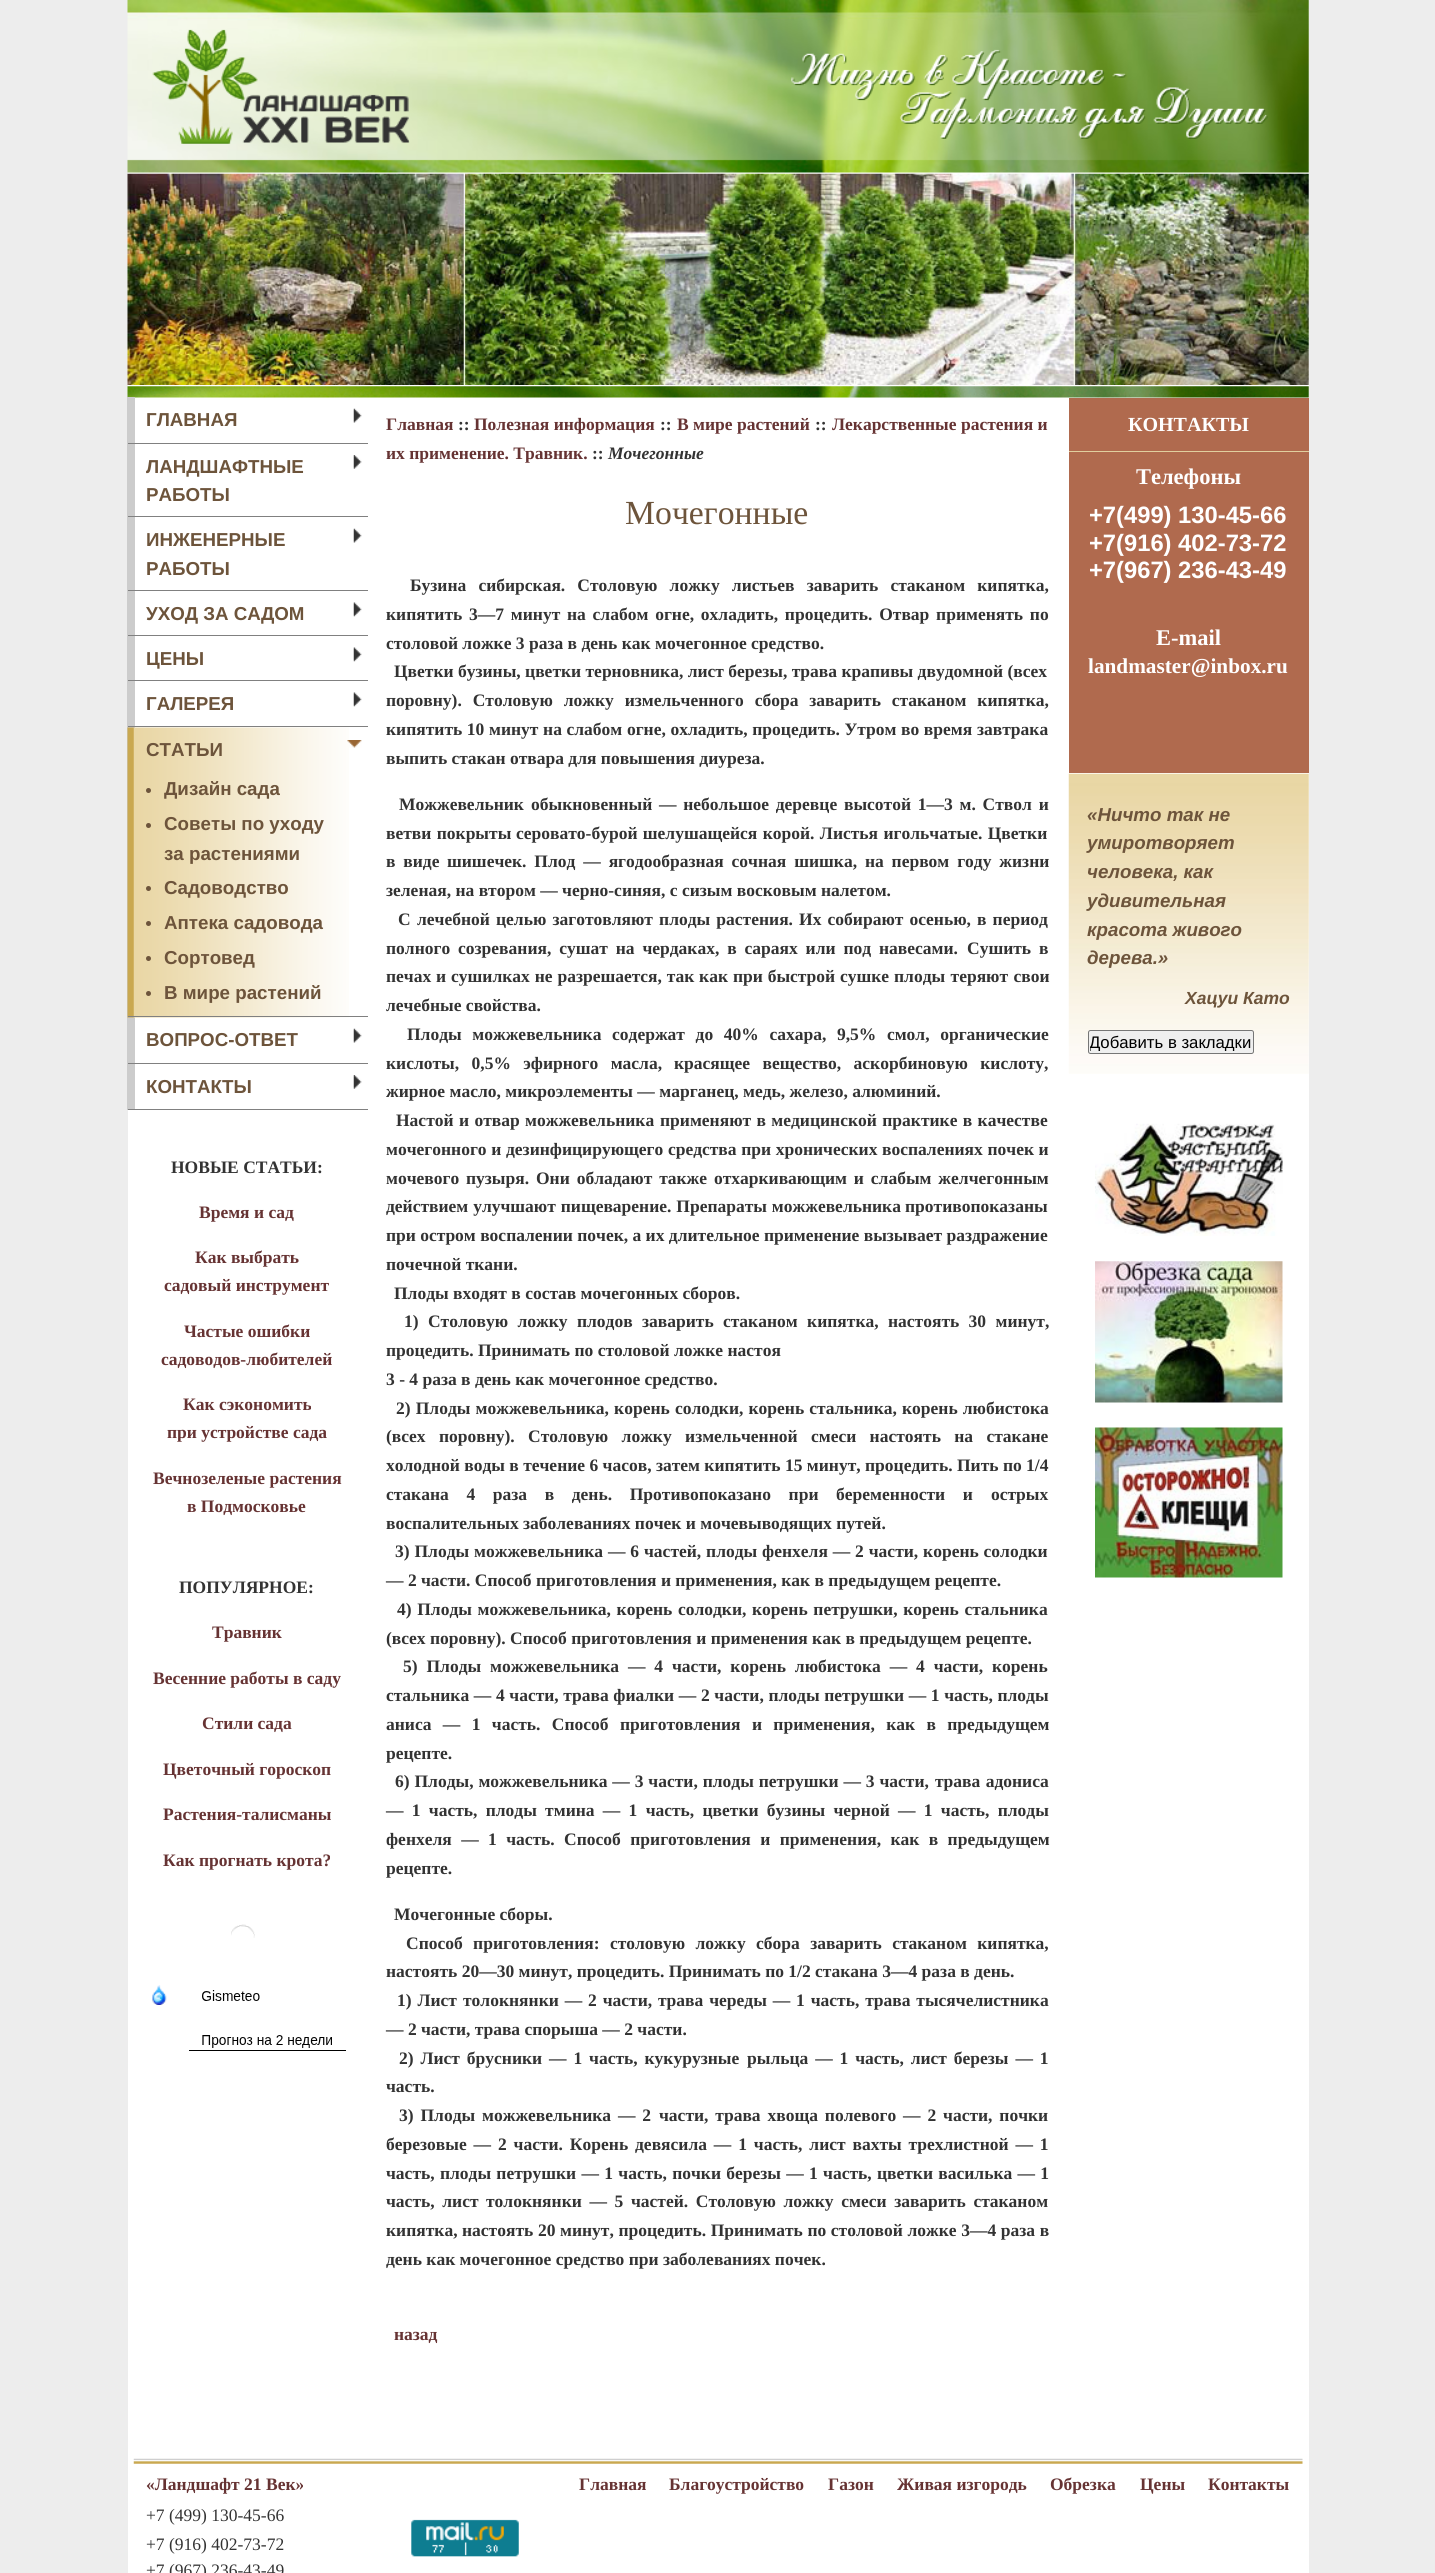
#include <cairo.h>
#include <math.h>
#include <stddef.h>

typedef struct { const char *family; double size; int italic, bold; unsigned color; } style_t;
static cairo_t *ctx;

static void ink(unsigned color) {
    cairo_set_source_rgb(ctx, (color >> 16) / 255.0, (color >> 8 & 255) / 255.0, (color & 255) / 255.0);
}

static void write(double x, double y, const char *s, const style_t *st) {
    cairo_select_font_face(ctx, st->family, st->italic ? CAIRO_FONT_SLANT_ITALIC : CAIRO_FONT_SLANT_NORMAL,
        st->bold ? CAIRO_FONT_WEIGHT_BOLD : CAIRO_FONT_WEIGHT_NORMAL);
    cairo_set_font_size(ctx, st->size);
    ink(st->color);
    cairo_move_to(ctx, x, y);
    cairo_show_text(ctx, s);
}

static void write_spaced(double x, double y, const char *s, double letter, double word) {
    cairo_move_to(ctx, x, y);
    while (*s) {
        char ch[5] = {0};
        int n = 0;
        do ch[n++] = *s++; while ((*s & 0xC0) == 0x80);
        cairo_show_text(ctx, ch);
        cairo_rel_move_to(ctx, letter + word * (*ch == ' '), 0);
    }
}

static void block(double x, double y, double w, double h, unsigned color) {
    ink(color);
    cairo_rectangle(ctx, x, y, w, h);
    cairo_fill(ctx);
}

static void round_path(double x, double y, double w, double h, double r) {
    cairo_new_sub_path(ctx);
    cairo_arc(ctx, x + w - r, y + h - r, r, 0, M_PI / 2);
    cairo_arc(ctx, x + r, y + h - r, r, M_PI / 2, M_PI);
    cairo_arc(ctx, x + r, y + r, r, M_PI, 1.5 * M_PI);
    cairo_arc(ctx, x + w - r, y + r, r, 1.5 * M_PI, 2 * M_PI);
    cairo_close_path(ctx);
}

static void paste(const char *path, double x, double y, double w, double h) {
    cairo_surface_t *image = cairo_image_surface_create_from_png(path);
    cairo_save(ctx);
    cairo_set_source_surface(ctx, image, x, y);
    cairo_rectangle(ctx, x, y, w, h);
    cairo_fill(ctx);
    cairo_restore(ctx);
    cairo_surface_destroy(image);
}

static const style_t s1 = {"Liberation Sans", 18.75, 0, 1, 0x6d543b};
static const style_t s2 = {"Liberation Serif", 17.5, 0, 1, 0x333333};
static const style_t s3 = {"Liberation Serif", 17.5, 0, 1, 0x663333};
static const style_t s4 = {"Liberation Serif", 17.5, 1, 1, 0x333333};
static const style_t s5 = {"Liberation Serif", 33.75, 0, 0, 0x6d543b};
static const style_t s6 = {"Liberation Serif", 20, 0, 1, 0xffffff};
static const style_t s7 = {"Liberation Serif", 22.5, 0, 1, 0xffffff};
static const style_t s8 = {"Liberation Sans", 23.75, 0, 1, 0xffffff};
static const style_t s9 = {"Liberation Serif", 21.25, 0, 1, 0xffffff};
static const style_t s10 = {"Liberation Sans", 18.75, 1, 1, 0x6d543b};
static const style_t s11 = {"Liberation Sans", 17.5, 1, 1, 0x6d543b};
static const style_t s12 = {"Liberation Sans", 16.75, 0, 0, 0x000000};
static const style_t s13 = {"Liberation Serif", 17.5, 0, 0, 0x333333};

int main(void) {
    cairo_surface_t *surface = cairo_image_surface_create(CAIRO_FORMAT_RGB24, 1435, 2573);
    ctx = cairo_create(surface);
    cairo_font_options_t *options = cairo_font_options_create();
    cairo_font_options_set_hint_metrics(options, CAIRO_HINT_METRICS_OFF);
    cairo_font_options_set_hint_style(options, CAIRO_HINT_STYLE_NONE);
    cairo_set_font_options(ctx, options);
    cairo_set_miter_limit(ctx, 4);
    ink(0xededed);
    cairo_paint(ctx);
    block(128, 0, 1181, 2573, 0xffffff);
    paste("pic1.png", 127, 0, 1182, 173);
    paste("pic2.png", 152, 29, 258, 115);
    paste("pic3.png", 791, 49, 477, 90);
    paste("pic4.png", 127, 173, 1182, 212);
    paste("pic5.png", 127, 386, 1182, 12);
    block(127, 397, 8, 713, 0xcccccc);
    block(128, 443, 240, 1, 0x808080);
    paste("pic6.png", 353, 408, 9, 15);
    write(146, 426, "ГЛАВНАЯ", &s1);
    block(128, 516, 240, 1, 0x808080);
    paste("pic7.png", 353, 455, 9, 14);
    write(146, 473, "ЛАНДШАФТНЫЕ", &s1);
    write(146, 501, "РАБОТЫ", &s1);
    block(128, 590, 240, 1, 0x808080);
    paste("pic6.png", 353, 528, 9, 15);
    write(146, 546, "ИНЖЕНЕРНЫЕ", &s1);
    write(146, 575, "РАБОТЫ", &s1);
    block(128, 635, 240, 1, 0x808080);
    paste("pic8.png", 353, 602, 9, 15);
    write(146, 620, "УХОД ЗА САДОМ", &s1);
    block(128, 680, 240, 1, 0x808080);
    paste("pic8.png", 353, 647, 9, 15);
    write(146, 665, "ЦЕНЫ", &s1);
    block(128, 726, 240, 1, 0x808080);
    paste("pic8.png", 353, 692, 9, 15);
    write(146, 710, "ГАЛЕРЕЯ", &s1);
    paste("pic9.png", 127, 727, 222, 291);
    block(128, 1016, 240, 1, 0x808080);
    paste("pic10.png", 347, 740, 15, 8);
    write(146, 756, "СТАТЬИ", &s1);
    cairo_new_path(ctx);
    cairo_arc(ctx, 148.5, 790.5, 2.5, 0, 2 * M_PI);
    cairo_fill(ctx);
    write(164, 795, "Дизайн сада", &s1);
    cairo_new_path(ctx);
    cairo_arc(ctx, 148.5, 825.5, 2.5, 0, 2 * M_PI);
    cairo_fill(ctx);
    write(164, 830, "Советы по уходу", &s1);
    write(164, 860, "за растениями", &s1);
    cairo_new_path(ctx);
    cairo_arc(ctx, 148.5, 888.5, 2.5, 0, 2 * M_PI);
    cairo_fill(ctx);
    write(164, 894, "Садоводство", &s1);
    cairo_new_path(ctx);
    cairo_arc(ctx, 148.5, 923.5, 2.5, 0, 2 * M_PI);
    cairo_fill(ctx);
    write(164, 929, "Аптека садовода", &s1);
    cairo_new_path(ctx);
    cairo_arc(ctx, 148.5, 958.5, 2.5, 0, 2 * M_PI);
    cairo_fill(ctx);
    write(164, 964, "Сортовед", &s1);
    cairo_new_path(ctx);
    cairo_arc(ctx, 148.5, 993.5, 2.5, 0, 2 * M_PI);
    cairo_fill(ctx);
    write(164, 999, "В мире растений", &s1);
    block(128, 1063, 240, 1, 0x808080);
    paste("pic6.png", 353, 1028, 9, 15);
    write(146, 1046, "ВОПРОС-ОТВЕТ", &s1);
    block(128, 1109, 240, 1, 0x808080);
    paste("pic7.png", 353, 1075, 9, 14);
    write(146, 1093, "КОНТАКТЫ", &s1);
    write(171, 1173, "НОВЫЕ СТАТЬИ:", &s2);
    write(199, 1218, "Время и сад", &s3);
    write(195, 1263, "Как выбрать", &s3);
    write(164, 1291, "садовый инструмент", &s3);
    write(184, 1337, "Частые ошибки", &s3);
    write(161, 1365, "садоводов-любителей", &s3);
    write(183, 1410, "Как сэкономить", &s3);
    write(167, 1438, "при устройстве сада", &s3);
    write(153, 1484, "Вечнозеленые растения", &s3);
    write(187, 1512, "в Подмосковье", &s3);
    write(179, 1593, "ПОПУЛЯРНОЕ:", &s2);
    write(212, 1638, "Травник", &s3);
    write(153, 1684, "Весенние работы в саду", &s3);
    write(202, 1729, "Стили сада", &s3);
    write(163, 1775, "Цветочный гороскоп", &s3);
    write(163, 1820, "Растения-талисманы", &s3);
    write(163, 1866, "Как прогнать крота?", &s3);
    paste("pic11.png", 231, 1924, 24, 14);
    paste("pic12.png", 152, 1985, 15, 20);
    paste("pic13.png", 202, 1990, 58, 11);
    paste("pic14.png", 202, 2035, 130, 13);
    block(189, 2050, 157, 1, 0x000000);
    write(386, 430, "Главная", &s3);
    write(458, 430, "::", &s2);
    write(474, 430, "Полезная информация", &s3);
    write(660, 430, "::", &s2);
    write(677, 430, "В мире растений", &s3);
    write(815, 430, "::", &s2);
    write(832, 430, "Лекарственные растения и", &s3);
    write(386, 459, "их применение. Травник.", &s3);
    write(592, 459, "::", &s2);
    write(608, 459, "Мочегонные", &s4);
    write(625, 524, "Мочегонные", &s5);
    cairo_select_font_face(ctx, "Liberation Serif", CAIRO_FONT_SLANT_NORMAL, CAIRO_FONT_WEIGHT_BOLD);
    cairo_set_font_size(ctx, 17.5);
    ink(0x333333);
    write_spaced(410, 591, "Бузина сибирская. Столовую ложку листьев заварить стаканом кипятка,", 0, 7.75);
    write_spaced(386, 620, "кипятить 3—7 минут на слабом огне, охладить, процедить. Отвар применять по", 0, 2.4);
    write(386, 649, "столовой ложке 3 раза в день как мочегонное средство.", &s2);
    write(394, 677, "Цветки бузины, цветки терновника, лист березы, трава крапивы двудомной (всех", &s2);
    write_spaced(386, 706, "поровну). Столовую ложку измельченного сбора заварить стаканом кипятка,", 0, 6.5);
    write_spaced(386, 735, "кипятить 10 минут на слабом огне, охладить, процедить. Утром во время", 0, 0.25);
    write(977, 735, "завтрака", &s2);
    write(386, 764, "выпить стакан отвара для повышения диуреза.", &s2);
    write(399, 810, "Можжевельник", &s2);
    write(531, 810, "обыкновенный", &s2);
    write_spaced(659, 810, "— небольшое деревце высотой 1—3 м. Ствол и", 0, 2.4);
    write_spaced(386, 839, "ветви покрыты", 0, 1);
    write_spaced(516, 839, "серовато-бурой шелушащейся корой. Листья игольчатые. Цветки", 0, 1);
    write_spaced(386, 867, "в виде", 0, 3.5);
    write_spaced(447, 867, "шишечек. Плод — ягодообразная сочная шишка, на первом году жизни", 0, 3.5);
    write(386, 896, "зеленая, на втором — черно-синяя, с сизым восковым налетом.", &s2);
    write(398, 925, "С", &s2);
    write_spaced(417, 925, "лечебной целью заготовляют плоды растения. Их собирают осенью, в период", 0, 1.75);
    write_spaced(386, 954, "полного созревания, сушат на чердаках, в сараях или под навесами.", 0, 3.5);
    write_spaced(967, 954, "Сушить в", 0, 3.5);
    write_spaced(386, 982, "печах и сушилках не разрешается, так как при быстрой сушке", 0, 0.5);
    write_spaced(894, 982, "плоды теряют свои", 0, 1);
    write(386, 1011, "лечебные свойства.", &s2);
    write_spaced(407, 1040, "Плоды можжевельника содержат до 40% сахара, 9,5% смол, органические", 0, 6.25);
    write_spaced(386, 1069, "кислоты, 0,5% эфирного масла,", 0, 8);
    write_spaced(674, 1069, "красящее вещество, аскорбиновую кислоту,", 0, 8);
    write(386, 1097, "жирное масло, микроэлементы — марганец, медь, железо, алюминий.", &s2);
    write_spaced(396, 1126, "Настой и отвар можжевельника", 0, 1);
    write_spaced(660, 1126, "применяют в медицинской практике в качестве", 0, 1);
    write_spaced(386, 1155, "мочегонного и", 0, 0.25);
    write_spaced(506, 1155, "дезинфицирующего средства при хронических воспалениях почек и", 0, 0.25);
    write(386, 1184, "мочевого", &s2);
    write_spaced(466, 1184, "пузыря. Они обладают также отхаркивающим и слабым желчегонным", 0, 2.5);
    write_spaced(386, 1212, "действием улучшают пищеварение. Препараты можжевельника", 0, 0.5);
    write(905, 1212, "противопоказаны", &s2);
    write(386, 1241, "при остром воспалении почек, а их длительное применение вызывает раздражение", &s2);
    write(386, 1270, "почечной ткани.", &s2);
    write(394, 1299, "Плоды входят в состав мочегонных сборов.", &s2);
    write_spaced(404, 1327, "1) Столовую ложку плодов заварить стаканом кипятка, настоять 30 минут,", 0, 5);
    write(386, 1356, "процедить. Принимать по столовой ложке настоя", &s2);
    write(386, 1385, "3 - 4 раза в день как мочегонное средство.", &s2);
    write_spaced(396, 1414, "2) Плоды можжевельника, корень солодки, корень стальника, корень любистока", 0, 0.75);
    write_spaced(386, 1442, "(всех поровну). Столовую ложку измельченной смеси настоять на стакане", 0, 9);
    write(386, 1471, "холодной воды в течение 6 часов, затем кипятить 15 минут, процедить. Пить по 1/4", &s2);
    write_spaced(386, 1500, "стакана 4 раза в день. Противопоказано при беременности и", 0, 13.25);
    write(991, 1500, "острых", &s2);
    write(386, 1529, "воспалительных заболеваниях почек и мочевыводящих путей.", &s2);
    write_spaced(395, 1557, "3) Плоды можжевельника — 6 частей, плоды фенхеля — 2 части, корень солодки", 0, 0.5);
    write(386, 1586, "— 2 части. Способ приготовления и применения, как в предыдущем рецепте.", &s2);
    write_spaced(397, 1615, "4) Плоды можжевельника, корень солодки, корень петрушки, корень стальника", 0, 1.25);
    write(386, 1644, "(всех поровну). Способ приготовления и применения как в предыдущем рецепте.", &s2);
    write_spaced(403, 1672, "5) Плоды можжевельника — 4 части, корень любистока — 4 части, корень", 0, 4.5);
    write_spaced(386, 1701, "стальника — 4 части, трава фиалки — 2 части, плоды петрушки — 1 часть, плоды", 0, 0.25);
    write_spaced(386, 1730, "аниса — 1 часть. Способ приготовления и применения, как в предыдущем", 0, 7);
    write(386, 1759, "рецепте.", &s2);
    write_spaced(395, 1787, "6) Плоды, можжевельника — 3 части, плоды петрушки — 3 части,", 0, 0.5);
    write_spaced(935, 1787, "трава адониса", 0, 1);
    write_spaced(386, 1816, "— 1 часть, плоды тмина — 1 часть, цветки бузины черной — 1 часть, плоды", 0, 3.9);
    write_spaced(386, 1845, "фенхеля — 1 часть. Способ приготовления и применения, как в предыдущем", 0, 5);
    write(386, 1874, "рецепте.", &s2);
    write(394, 1920, "Мочегонные сборы.", &s2);
    write_spaced(406, 1949, "Способ приготовления: столовую ложку сбора заварить стаканом кипятка,", 0, 6);
    write(386, 1977, "настоять 20—30 минут, процедить. Принимать по 1/2 стакана 3—4 раза в день.", &s2);
    write_spaced(397, 2006, "1) Лист", 0, 1.5);
    write_spaced(463, 2006, "толокнянки — 2 части, трава череды — 1 часть, трава тысячелистника", 0, 1.5);
    write(386, 2035, "— 2 части, трава спорыша — 2 части.", &s2);
    write_spaced(399, 2064, "2) Лист брусники — 1 часть, кукурузные", 0, 2.5);
    write_spaced(747, 2064, "рыльца — 1 часть, лист березы — 1", 0, 2.5);
    write(386, 2092, "часть.", &s2);
    write_spaced(399, 2121, "3) Плоды можжевельника — 2", 0, 2.5);
    write_spaced(659, 2121, "части, трава хвоща полевого — 2 части, почки", 0, 2.5);
    write_spaced(386, 2150, "березовые — 2 части. Корень девясила — 1 часть, лист вахты трехлистной — 1", 0, 2.5);
    write_spaced(386, 2179, "часть, плоды петрушки — 1 часть, почки березы — 1 часть, цветки василька — 1", 0, 0.9);
    write_spaced(386, 2207, "часть, лист", 0, 3.25);
    write_spaced(486, 2207, "толокнянки — 5 частей. Столовую ложку смеси заварить стаканом", 0, 3.25);
    write(386, 2236, "кипятка,", &s2);
    write_spaced(462, 2236, "настоять 20 минут, процедить. Принимать по столовой ложке 3—4 раза в", 0, 0.25);
    write(386, 2265, "день как мочегонное средство при заболеваниях почек.", &s2);
    write(394, 2340, "назад", &s3);
    block(1069, 398, 240, 375, 0xb06a4e);
    block(1069, 451, 240, 1, 0xe1cf9f);
    write(1128, 431, "КОНТАКТЫ", &s6);
    write(1136, 484, "Телефоны", &s7);
    write(1089, 523, "+7(499) 130-45-66", &s8);
    write(1089, 551, "+7(916) 402-73-72", &s8);
    write(1089, 578, "+7(967) 236-43-49", &s8);
    write(1156, 645, "E-mail", &s7);
    write(1088, 673, "landmaster@inbox.ru", &s9);
    paste("pic15.png", 1068, 773, 241, 301);
    write(1087, 821, "«Ничто так не", &s10);
    write(1087, 849, "умиротворяет", &s10);
    write(1087, 878, "человека, как", &s10);
    write(1087, 907, "удивительная", &s10);
    write(1087, 936, "красота живого", &s10);
    write(1087, 964, "дерева.»", &s10);
    write(1185, 1004, "Хацуи Като", &s11);
    ink(0xefefef);
    round_path(1088.5, 1030.5, 165, 23, 2);
    cairo_fill_preserve(ctx);
    ink(0x767676);
    cairo_set_line_width(ctx, 1);
    cairo_stroke(ctx);
    cairo_save(ctx);
    cairo_rectangle(ctx, 1090, 1033, 161, 18);
    cairo_clip(ctx);
    write(1089, 1048, "Добавить в закладки", &s12);
    cairo_restore(ctx);
    paste("pic16.png", 1095, 1123, 188, 113);
    paste("pic17.png", 1095, 1261, 188, 142);
    paste("pic18.png", 1095, 1427, 188, 151);
    paste("pic19.png", 133, 2458, 1170, 6);
    write(146, 2490, "«Ландшафт 21 Век»", &s3);
    write(146, 2521, "+7 (499) 130-45-66", &s13);
    write(146, 2550, "+7 (916) 402-73-72", &s13);
    write(146, 2576, "+7 (967) 236-43-49", &s13);
    write(579, 2490, "Главная", &s3);
    write(669, 2490, "Благоустройство", &s3);
    write(828, 2490, "Газон", &s3);
    write(897, 2490, "Живая изгородь", &s3);
    write(1050, 2490, "Обрезка", &s3);
    write(1140, 2490, "Цены", &s3);
    write(1208, 2490, "Контакты", &s3);
    paste("pic20.png", 411, 2519, 108, 38);
    cairo_surface_write_to_png(surface, "screenshot.png");
    cairo_font_options_destroy(options);
    cairo_destroy(ctx);
    cairo_surface_destroy(surface);
    return 0;
}
